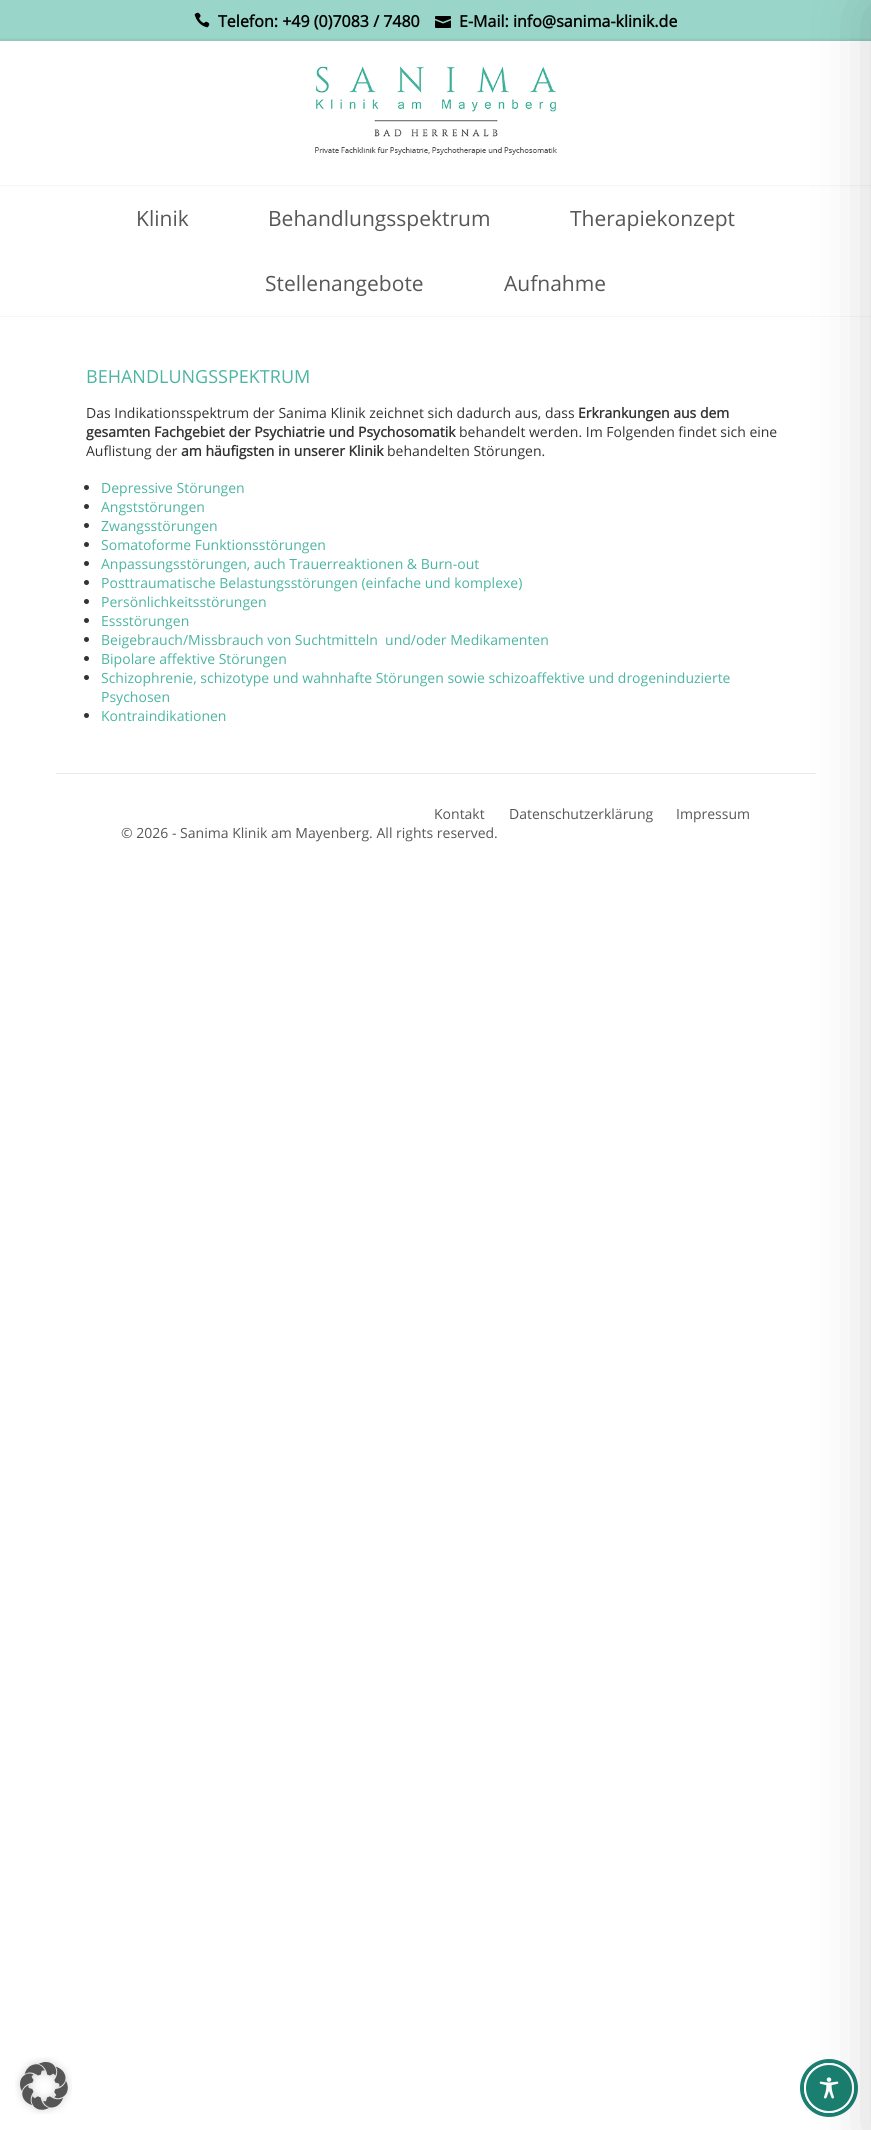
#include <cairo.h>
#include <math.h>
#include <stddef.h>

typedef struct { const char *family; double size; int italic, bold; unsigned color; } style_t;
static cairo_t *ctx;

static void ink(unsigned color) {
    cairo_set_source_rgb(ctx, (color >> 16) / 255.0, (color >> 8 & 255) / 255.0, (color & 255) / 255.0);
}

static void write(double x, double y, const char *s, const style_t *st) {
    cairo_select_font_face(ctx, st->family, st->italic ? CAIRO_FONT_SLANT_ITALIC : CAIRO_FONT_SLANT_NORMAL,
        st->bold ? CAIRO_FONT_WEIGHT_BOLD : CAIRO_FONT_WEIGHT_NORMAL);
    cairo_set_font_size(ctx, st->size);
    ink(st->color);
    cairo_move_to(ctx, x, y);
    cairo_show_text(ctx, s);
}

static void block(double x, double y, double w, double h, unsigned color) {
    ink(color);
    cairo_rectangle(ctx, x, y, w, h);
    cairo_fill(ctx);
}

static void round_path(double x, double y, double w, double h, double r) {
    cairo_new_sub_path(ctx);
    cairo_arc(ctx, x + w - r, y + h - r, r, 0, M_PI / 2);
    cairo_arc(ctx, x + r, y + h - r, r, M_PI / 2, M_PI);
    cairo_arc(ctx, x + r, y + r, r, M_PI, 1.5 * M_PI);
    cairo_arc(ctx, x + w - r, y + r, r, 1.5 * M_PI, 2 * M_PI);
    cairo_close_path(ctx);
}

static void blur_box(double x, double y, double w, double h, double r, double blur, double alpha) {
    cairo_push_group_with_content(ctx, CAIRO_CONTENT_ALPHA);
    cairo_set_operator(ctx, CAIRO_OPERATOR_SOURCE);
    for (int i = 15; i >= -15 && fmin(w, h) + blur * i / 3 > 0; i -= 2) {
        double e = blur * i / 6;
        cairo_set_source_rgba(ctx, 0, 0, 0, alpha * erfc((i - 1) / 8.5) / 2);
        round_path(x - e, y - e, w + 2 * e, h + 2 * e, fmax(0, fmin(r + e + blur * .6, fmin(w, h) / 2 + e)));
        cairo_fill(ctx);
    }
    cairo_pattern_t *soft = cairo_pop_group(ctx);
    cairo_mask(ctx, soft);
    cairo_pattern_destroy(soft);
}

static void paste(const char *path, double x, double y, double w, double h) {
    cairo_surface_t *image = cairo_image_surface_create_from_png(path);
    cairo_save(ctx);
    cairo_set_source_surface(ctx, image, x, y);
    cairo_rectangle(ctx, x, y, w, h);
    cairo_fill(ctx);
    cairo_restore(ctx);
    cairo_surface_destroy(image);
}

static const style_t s1 = {"Open Sans", 16, 0, 1, 0x000000};
static const style_t s2 = {"Open Sans", 21, 0, 0, 0x575757};
static const style_t s3 = {"Open Sans", 18, 0, 0, 0x4db5a2};
static const style_t s4 = {"Open Sans", 14, 0, 0, 0x333333};
static const style_t s5 = {"Open Sans", 14, 0, 1, 0x333333};
static const style_t s6 = {"Open Sans", 14, 0, 0, 0x4db5a2};
static const style_t s7 = {"Open Sans", 14, 0, 0, 0x575757};

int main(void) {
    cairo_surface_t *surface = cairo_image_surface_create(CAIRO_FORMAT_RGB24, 871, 2130);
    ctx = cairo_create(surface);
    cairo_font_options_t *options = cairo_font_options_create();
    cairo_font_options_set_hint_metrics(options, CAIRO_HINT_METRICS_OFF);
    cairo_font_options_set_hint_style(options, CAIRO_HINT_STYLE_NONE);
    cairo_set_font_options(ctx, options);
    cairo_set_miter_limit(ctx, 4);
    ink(0xffffff);
    cairo_paint(ctx);
    block(0, 0, 871, 41, 0x99d5c9);
    paste("pic1.png", 194, 12, 16, 16);
    write(218, 27, "Telefon: +49 (0)7083 / 7480", &s1);
    paste("pic2.png", 435, 16, 16, 12);
    write(459, 27, "E-Mail: info@sanima-klinik.de", &s1);
    cairo_save(ctx);
    cairo_rectangle(ctx, 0, 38, 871, 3);
    cairo_clip(ctx);
    ink(0x000000);
    blur_box(0, 41, 871, 144, 0, 2.5, 0.15);
    cairo_restore(ctx);
    block(0, 186, 871, 2, 0xfdfdfd);
    block(0, 185, 871, 1, 0xf6f6f6);
    block(0, 316, 871, 1, 0xf6f6f6);
    block(56, 773, 760, 1, 0xe9e9e9);
    cairo_arc(ctx, 829, 2088, 27, 0, 2 * M_PI);
    ink(0x1a8071);
    cairo_set_line_width(ctx, 4);
    cairo_stroke(ctx);
    cairo_arc(ctx, 829, 2088, 24, 0, 2 * M_PI);
    cairo_fill_preserve(ctx);
    ink(0xffffff);
    cairo_set_line_width(ctx, 2);
    cairo_stroke(ctx);
    paste("pic5.png", 819, 2077, 20, 22);
    ink(0x000000);
    blur_box(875, 10, 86, 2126, 0, 30, 0.2);
    paste("pic3.png", 315, 66, 242, 89);
    write(136, 226, "Klinik", &s2);
    write(268, 226, "Behandlungsspektrum", &s2);
    write(570, 226, "Therapiekonzept", &s2);
    write(265, 291, "Stellenangebote", &s2);
    write(504, 291, "Aufnahme", &s2);
    write(86, 383, "BEHANDLUNGSSPEKTRUM", &s3);
    write(86, 418, "Das Indikationsspektrum der Sanima Klinik zeichnet sich dadurch aus, dass", &s4);
    write(578, 418, "Erkrankungen aus dem", &s5);
    write(86, 437, "gesamten Fachgebiet der Psychiatrie und Psychosomatik", &s5);
    write(459, 437, "behandelt werden. Im Folgenden findet sich eine", &s4);
    write(86, 456, "Auflistung der", &s4);
    write(181, 456, "am häufigsten in unserer Klinik", &s5);
    write(387, 456, "behandelten Störungen.", &s4);
    cairo_new_path(ctx);
    cairo_arc(ctx, 86.5, 487.5, 2.5, 0, 2 * M_PI);
    cairo_fill(ctx);
    write(101, 493, "Depressive Störungen", &s6);
    ink(0x333333);
    cairo_new_path(ctx);
    cairo_arc(ctx, 86.5, 506.5, 2.5, 0, 2 * M_PI);
    cairo_fill(ctx);
    write(101, 512, "Angststörungen", &s6);
    ink(0x333333);
    cairo_new_path(ctx);
    cairo_arc(ctx, 86.5, 525.5, 2.5, 0, 2 * M_PI);
    cairo_fill(ctx);
    write(101, 531, "Zwangsstörungen", &s6);
    ink(0x333333);
    cairo_new_path(ctx);
    cairo_arc(ctx, 86.5, 544.5, 2.5, 0, 2 * M_PI);
    cairo_fill(ctx);
    write(101, 550, "Somatoforme Funktionsstörungen", &s6);
    ink(0x333333);
    cairo_new_path(ctx);
    cairo_arc(ctx, 86.5, 563.5, 2.5, 0, 2 * M_PI);
    cairo_fill(ctx);
    write(101, 569, "Anpassungsstörungen, auch Trauerreaktionen & Burn-out", &s6);
    ink(0x333333);
    cairo_new_path(ctx);
    cairo_arc(ctx, 86.5, 582.5, 2.5, 0, 2 * M_PI);
    cairo_fill(ctx);
    write(101, 588, "Posttraumatische Belastungsstörungen (einfache und komplexe)", &s6);
    ink(0x333333);
    cairo_new_path(ctx);
    cairo_arc(ctx, 86.5, 601.5, 2.5, 0, 2 * M_PI);
    cairo_fill(ctx);
    write(101, 607, "Persönlichkeitsstörungen", &s6);
    ink(0x333333);
    cairo_new_path(ctx);
    cairo_arc(ctx, 86.5, 620.5, 2.5, 0, 2 * M_PI);
    cairo_fill(ctx);
    write(101, 626, "Essstörungen", &s6);
    ink(0x333333);
    cairo_new_path(ctx);
    cairo_arc(ctx, 86.5, 639.5, 2.5, 0, 2 * M_PI);
    cairo_fill(ctx);
    write(101, 645, "Beigebrauch/Missbrauch von Suchtmitteln  und/oder Medikamenten", &s6);
    ink(0x333333);
    cairo_new_path(ctx);
    cairo_arc(ctx, 86.5, 658.5, 2.5, 0, 2 * M_PI);
    cairo_fill(ctx);
    write(101, 664, "Bipolare affektive Störungen", &s6);
    ink(0x333333);
    cairo_new_path(ctx);
    cairo_arc(ctx, 86.5, 677.5, 2.5, 0, 2 * M_PI);
    cairo_fill(ctx);
    write(101, 683, "Schizophrenie, schizotype und wahnhafte Störungen sowie schizoaffektive und drogeninduzierte", &s6);
    write(101, 702, "Psychosen", &s6);
    ink(0x333333);
    cairo_new_path(ctx);
    cairo_arc(ctx, 86.5, 715.5, 2.5, 0, 2 * M_PI);
    cairo_fill(ctx);
    write(101, 721, "Kontraindikationen", &s6);
    write(434, 819, "Kontakt", &s7);
    write(509, 819, "Datenschutzerklärung", &s7);
    write(676, 819, "Impressum", &s7);
    write(121, 838, "© 2026 - Sanima Klinik am Mayenberg. All rights reserved.", &s7);
    paste("pic4.png", 15, 2057, 57, 57);
    cairo_surface_write_to_png(surface, "screenshot.png");
    cairo_font_options_destroy(options);
    cairo_destroy(ctx);
    cairo_surface_destroy(surface);
    return 0;
}
